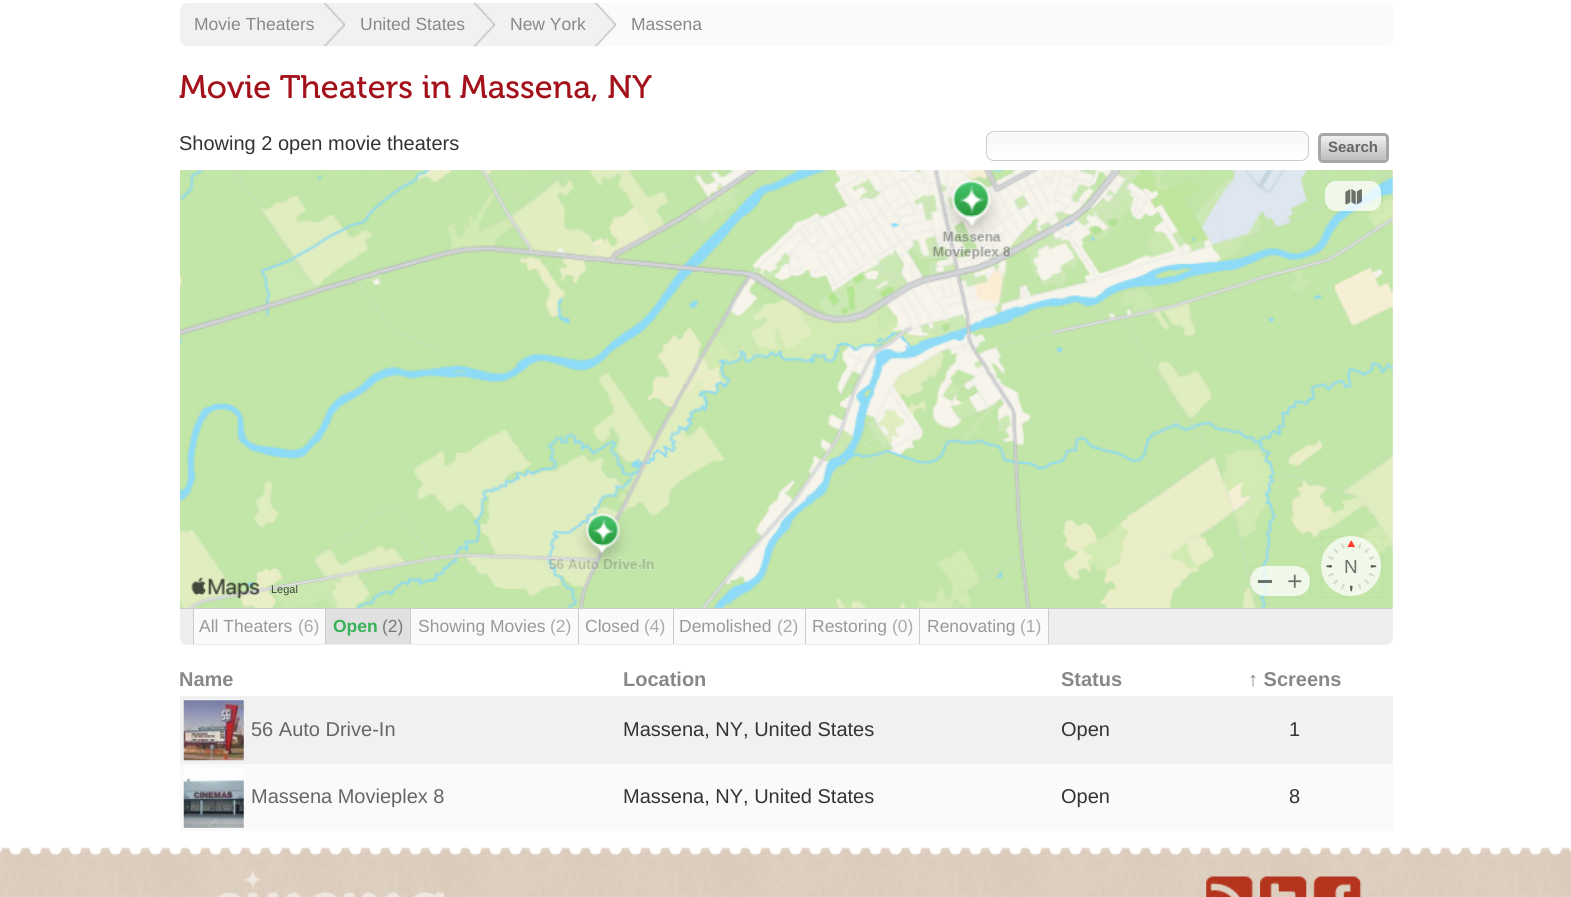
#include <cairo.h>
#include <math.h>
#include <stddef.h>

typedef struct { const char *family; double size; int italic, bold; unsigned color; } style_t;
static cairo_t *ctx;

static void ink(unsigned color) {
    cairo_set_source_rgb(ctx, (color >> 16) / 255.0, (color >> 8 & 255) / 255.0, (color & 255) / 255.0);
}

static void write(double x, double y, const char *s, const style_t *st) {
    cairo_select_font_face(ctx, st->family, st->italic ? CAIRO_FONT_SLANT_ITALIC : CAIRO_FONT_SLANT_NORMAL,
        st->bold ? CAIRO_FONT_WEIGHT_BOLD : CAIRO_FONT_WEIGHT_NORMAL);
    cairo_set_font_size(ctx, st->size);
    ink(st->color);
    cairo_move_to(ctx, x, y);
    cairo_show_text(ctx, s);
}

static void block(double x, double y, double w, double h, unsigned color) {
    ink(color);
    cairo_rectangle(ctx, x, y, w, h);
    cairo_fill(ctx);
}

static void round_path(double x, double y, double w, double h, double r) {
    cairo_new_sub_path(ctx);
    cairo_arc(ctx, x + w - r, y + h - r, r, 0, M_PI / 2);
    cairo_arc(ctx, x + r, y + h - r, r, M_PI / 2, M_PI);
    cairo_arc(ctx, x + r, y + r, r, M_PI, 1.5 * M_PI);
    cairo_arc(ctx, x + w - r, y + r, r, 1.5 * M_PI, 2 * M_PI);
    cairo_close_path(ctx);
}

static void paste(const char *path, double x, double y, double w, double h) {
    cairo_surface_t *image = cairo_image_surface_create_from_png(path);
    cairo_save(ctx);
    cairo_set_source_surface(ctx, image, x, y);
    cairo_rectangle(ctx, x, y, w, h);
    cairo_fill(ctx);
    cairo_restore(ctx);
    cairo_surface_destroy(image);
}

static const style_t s1 = {"Liberation Sans", 17.5, 0, 0, 0x888888};
static const style_t s2 = {"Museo", 32.5, 0, 0, 0xa3121b};
static const style_t s3 = {"Liberation Sans", 20, 0, 0, 0x333333};
static const style_t s4 = {"Liberation Sans", 15, 0, 1, 0x666666};
static const style_t s5 = {"Liberation Sans", 19, 0, 0, 0x6c7069};
static const style_t s6 = {"Liberation Sans", 11, 0, 0, 0x3c4536};
static const style_t s7 = {"Liberation Sans", 17.5, 0, 0, 0x999999};
static const style_t s8 = {"Liberation Sans", 17.5, 0, 0, 0xaaaaaa};
static const style_t s9 = {"Liberation Sans", 17.5, 0, 1, 0x38b257};
static const style_t s10 = {"Liberation Sans", 17.5, 0, 0, 0x777777};
static const style_t s11 = {"Liberation Sans", 20, 0, 1, 0x888888};
static const style_t s12 = {"Liberation Sans", 20, 0, 0, 0x666666};

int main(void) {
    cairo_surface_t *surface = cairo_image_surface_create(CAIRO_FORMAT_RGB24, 1571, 897);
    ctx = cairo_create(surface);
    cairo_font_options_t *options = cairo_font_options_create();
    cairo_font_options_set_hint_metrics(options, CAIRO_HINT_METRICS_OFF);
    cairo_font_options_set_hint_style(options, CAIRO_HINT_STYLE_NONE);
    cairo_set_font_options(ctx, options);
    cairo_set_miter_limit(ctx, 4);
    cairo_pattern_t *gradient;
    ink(0xffffff);
    cairo_paint(ctx);
    ink(0xfafafa);
    round_path(180, 3, 1213, 43, 8);
    cairo_fill(ctx);
    ink(0xf1f1f1);
    cairo_new_path(ctx);
    cairo_move_to(ctx, 188, 3);
    cairo_line_to(ctx, 345, 3);
    cairo_line_to(ctx, 345, 46);
    cairo_line_to(ctx, 188, 46);
    cairo_curve_to(ctx, 183.5, 46, 180, 42.5, 180, 38);
    cairo_line_to(ctx, 180, 11);
    cairo_curve_to(ctx, 180, 6.5, 183.5, 3, 188, 3);
    cairo_close_path(ctx);
    cairo_fill(ctx);
    paste("pic1.png", 323, 3, 22, 44);
    write(194, 30, "Movie Theaters", &s1);
    block(345, 3, 271, 43, 0xf1f1f1);
    paste("pic2.png", 472, 2, 23, 45);
    write(360, 30, "United States", &s1);
    paste("pic3.png", 593, 3, 24, 44);
    write(510, 30, "New York", &s1);
    block(616, 23, 1, 3, 0xfafafa);
    write(631, 30, "Massena", &s1);
    write(179, 98, "Movie Theaters in Massena, NY", &s2);
    write(179, 150, "Showing 2 open movie theaters", &s3);
    cairo_save(ctx);
    round_path(986, 131, 323, 30, 8);
    cairo_clip(ctx);
    gradient = cairo_pattern_create_linear(1148, 132, 1148, 160);
    cairo_pattern_add_color_stop_rgba(gradient, 0, 0.965, 0.965, 0.965, 1);
    cairo_pattern_add_color_stop_rgba(gradient, 1, 1, 1, 1, 1);
    cairo_set_source(ctx, gradient);
    cairo_pattern_destroy(gradient);
    cairo_rectangle(ctx, 986, 133, 323, 27);
    cairo_fill(ctx);
    cairo_restore(ctx);
    round_path(986.5, 131.5, 322, 29, 7.5);
    ink(0xcccccc);
    cairo_set_line_width(ctx, 1);
    cairo_stroke(ctx);
    gradient = cairo_pattern_create_linear(1353, 135, 1353, 160);
    cairo_pattern_add_color_stop_rgba(gradient, 0, 0.949, 0.949, 0.949, 1);
    cairo_pattern_add_color_stop_rgba(gradient, 1, 0.741, 0.741, 0.741, 1);
    cairo_set_source(ctx, gradient);
    cairo_pattern_destroy(gradient);
    round_path(1320, 135, 66, 25, 2.5);
    cairo_fill(ctx);
    round_path(1319.5, 134.5, 68, 27, 3.5);
    ink(0xa6a6a6);
    cairo_set_line_width(ctx, 3);
    cairo_stroke(ctx);
    write(1328, 152, "Search", &s4);
    block(180, 170, 1213, 438, 0xf9f5ed);
    paste("pic4.png", 180, 170, 1213, 438);
    paste("pic5.png", 180, 170, 1213, 438);
    cairo_rectangle(ctx, 1325.3, 181.3, 57.4, 31.4);
    cairo_set_source_rgba(ctx, 0, 0, 0, 0.05);
    cairo_set_line_width(ctx, 0.6);
    cairo_stroke(ctx);
    cairo_set_source_rgba(ctx, 1, 1, 1, 0.75);
    round_path(1325, 181, 56, 30, 11);
    cairo_fill(ctx);
    paste("pic6.png", 1345, 189, 17, 16);
    cairo_rectangle(ctx, 1250.3, 566.3, 60.4, 31.4);
    cairo_set_source_rgba(ctx, 0, 0, 0, 0.05);
    cairo_stroke(ctx);
    cairo_set_source_rgba(ctx, 1, 1, 1, 0.75);
    round_path(1250, 566, 60, 30, 15);
    cairo_fill(ctx);
    cairo_set_source_rgba(ctx, 0, 0, 0, 0.55);
    cairo_rectangle(ctx, 1258, 580, 14, 3);
    cairo_fill(ctx);
    paste("pic7.png", 1288, 574, 14, 14);
    cairo_rectangle(ctx, 1321.3, 536.3, 61.4, 61.4);
    cairo_set_source_rgba(ctx, 0, 0, 0, 0.05);
    cairo_stroke(ctx);
    cairo_set_source_rgba(ctx, 1, 1, 1, 0.75);
    cairo_arc(ctx, 1351, 566, 30, 0, 2 * M_PI);
    cairo_fill(ctx);
    paste("pic8.png", 1326, 540, 51, 52);
    write(1344, 573, "N", &s5);
    paste("pic9.png", 191, 577, 69, 22);
    write(271, 593, "Legal", &s6);
    ink(0xeeeeee);
    cairo_new_path(ctx);
    cairo_move_to(ctx, 180, 608);
    cairo_line_to(ctx, 1393, 608);
    cairo_line_to(ctx, 1393, 637);
    cairo_curve_to(ctx, 1393, 641.5, 1389.5, 645, 1385, 645);
    cairo_line_to(ctx, 188, 645);
    cairo_curve_to(ctx, 183.5, 645, 180, 641.5, 180, 637);
    cairo_close_path(ctx);
    cairo_fill(ctx);
    block(180, 608, 1212, 1, 0xcccccc);
    ink(0xeeeeee);
    cairo_new_path(ctx);
    cairo_move_to(ctx, 1385, 645);
    cairo_curve_to(ctx, 1389, 645, 1392, 642, 1392, 638);
    cairo_curve_to(ctx, 1392, 641, 1389, 644, 1385, 644);
    cairo_line_to(ctx, 188, 644);
    cairo_curve_to(ctx, 183, 644, 180, 641, 180, 638);
    cairo_curve_to(ctx, 180, 642, 183, 645, 188, 645);
    cairo_close_path(ctx);
    cairo_fill(ctx);
    block(194, 609, 131, 35, 0xfafafa);
    block(325, 609, 1, 35, 0xcccccc);
    block(193, 609, 1, 35, 0xcccccc);
    write(199, 632, "All Theaters", &s7);
    write(298, 632, "(6)", &s8);
    block(326, 609, 84, 35, 0xe0e0e0);
    block(410, 609, 1, 35, 0xcccccc);
    write(333, 632, "Open", &s9);
    write(382, 632, "(2)", &s10);
    block(411, 609, 167, 35, 0xfafafa);
    block(578, 609, 1, 35, 0xcccccc);
    write(418, 632, "Showing Movies", &s7);
    write(550, 632, "(2)", &s8);
    block(579, 609, 94, 35, 0xfafafa);
    block(673, 609, 1, 35, 0xcccccc);
    write(585, 632, "Closed", &s7);
    write(644, 632, "(4)", &s8);
    block(674, 609, 131, 35, 0xfafafa);
    block(805, 609, 1, 35, 0xcccccc);
    write(679, 632, "Demolished", &s7);
    write(777, 632, "(2)", &s8);
    block(806, 609, 113, 35, 0xfafafa);
    block(919, 609, 1, 35, 0xcccccc);
    write(812, 632, "Restoring", &s7);
    write(892, 632, "(0)", &s8);
    block(920, 609, 128, 35, 0xfafafa);
    block(1048, 609, 1, 35, 0xcccccc);
    write(927, 632, "Renovating", &s7);
    write(1020, 632, "(1)", &s8);
    write(179, 686, "Name", &s11);
    write(623, 686, "Location", &s11);
    write(1061, 686, "Status", &s11);
    write(1248, 686, "↑ Screens", &s11);
    block(180, 696, 1213, 68, 0xf1f1f1);
    block(184, 700, 60, 60, 0xeeeeee);
    paste("pic10.png", 183, 700, 61, 61);
    write(251, 736, "56 Auto Drive-In", &s12);
    write(623, 736, "Massena, NY, United States", &s3);
    write(1061, 736, "Open", &s3);
    write(1289, 736, "1", &s3);
    block(180, 764, 1213, 67, 0xfafafa);
    block(184, 768, 60, 60, 0xeeeeee);
    paste("pic11.png", 183, 768, 61, 60);
    write(251, 803, "Massena Movieplex 8", &s12);
    write(623, 803, "Massena, NY, United States", &s3);
    write(1061, 803, "Open", &s3);
    write(1289, 803, "8", &s3);
    paste("pic12.png", 0, 847, 1571, 50);
    paste("pic13.png", 217, 869, 228, 28);
    paste("pic14.png", 1206, 876, 47, 21);
    paste("pic15.png", 1260, 876, 47, 21);
    paste("pic16.png", 1313, 876, 49, 21);
    cairo_surface_write_to_png(surface, "screenshot.png");
    cairo_font_options_destroy(options);
    cairo_destroy(ctx);
    cairo_surface_destroy(surface);
    return 0;
}
